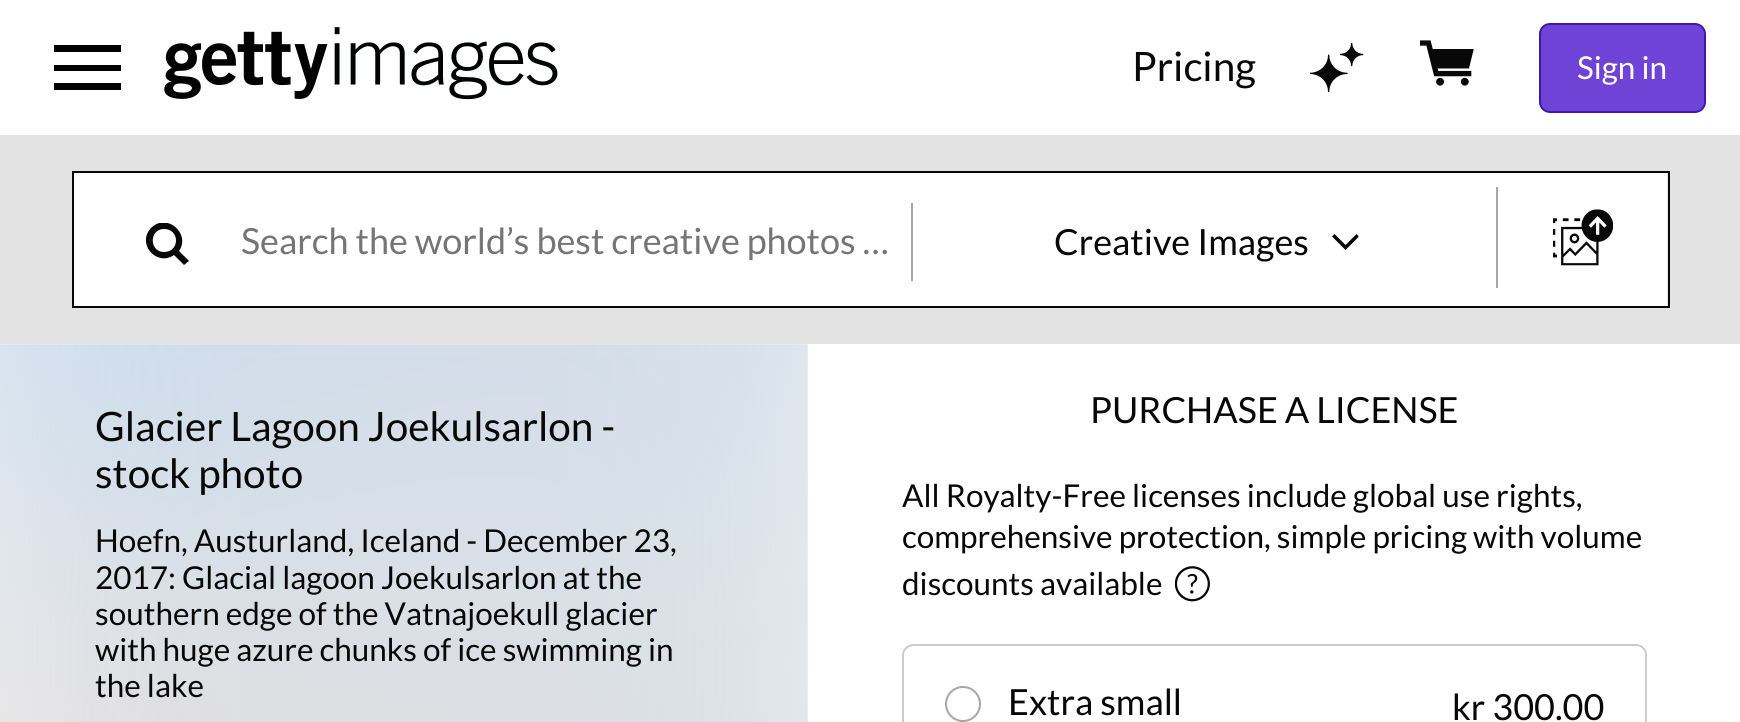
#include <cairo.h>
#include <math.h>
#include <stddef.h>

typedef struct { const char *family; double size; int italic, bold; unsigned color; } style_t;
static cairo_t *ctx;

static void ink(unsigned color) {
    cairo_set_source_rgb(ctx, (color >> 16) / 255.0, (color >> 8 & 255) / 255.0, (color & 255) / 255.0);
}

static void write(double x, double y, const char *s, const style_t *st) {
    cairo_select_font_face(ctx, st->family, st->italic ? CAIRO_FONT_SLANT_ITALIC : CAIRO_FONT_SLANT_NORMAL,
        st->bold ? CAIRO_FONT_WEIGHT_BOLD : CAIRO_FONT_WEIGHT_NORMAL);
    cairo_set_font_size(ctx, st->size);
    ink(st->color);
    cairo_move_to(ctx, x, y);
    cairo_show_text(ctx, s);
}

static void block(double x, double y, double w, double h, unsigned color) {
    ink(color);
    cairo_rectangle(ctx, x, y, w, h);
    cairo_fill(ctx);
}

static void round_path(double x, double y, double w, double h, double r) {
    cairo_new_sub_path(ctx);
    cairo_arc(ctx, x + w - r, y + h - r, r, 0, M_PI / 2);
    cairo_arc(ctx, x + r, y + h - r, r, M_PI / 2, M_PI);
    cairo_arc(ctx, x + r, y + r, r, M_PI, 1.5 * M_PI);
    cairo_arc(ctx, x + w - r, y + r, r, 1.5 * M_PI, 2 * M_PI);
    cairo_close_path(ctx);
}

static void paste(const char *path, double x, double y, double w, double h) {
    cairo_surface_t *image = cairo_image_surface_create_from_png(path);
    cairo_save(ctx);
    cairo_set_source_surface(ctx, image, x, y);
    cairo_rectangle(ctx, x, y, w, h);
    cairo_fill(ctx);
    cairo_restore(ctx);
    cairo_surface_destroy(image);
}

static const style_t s1 = {"Lato", 40.5, 0, 0, 0x080808};
static const style_t s2 = {"Lato", 31.5, 0, 0, 0xffffff};
static const style_t s3 = {"Lato", 36, 0, 0, 0x757575};
static const style_t s4 = {"Lato", 36, 0, 0, 0x080808};
static const style_t s5 = {"Lato", 31.5, 0, 0, 0x080808};

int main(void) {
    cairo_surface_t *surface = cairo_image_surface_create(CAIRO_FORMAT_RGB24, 1740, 722);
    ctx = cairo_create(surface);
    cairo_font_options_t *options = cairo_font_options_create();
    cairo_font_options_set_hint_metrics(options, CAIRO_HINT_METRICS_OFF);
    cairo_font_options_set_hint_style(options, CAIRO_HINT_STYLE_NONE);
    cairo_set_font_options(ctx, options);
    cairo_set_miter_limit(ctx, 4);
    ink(0xffffff);
    cairo_paint(ctx);
    ink(0x000000);
    cairo_new_path(ctx);
    cairo_move_to(ctx, 54, 45);
    cairo_line_to(ctx, 121, 45);
    cairo_line_to(ctx, 121, 52);
    cairo_line_to(ctx, 54, 52);
    cairo_close_path(ctx);
    cairo_move_to(ctx, 54, 65);
    cairo_line_to(ctx, 121, 65);
    cairo_line_to(ctx, 121, 71);
    cairo_line_to(ctx, 54, 71);
    cairo_close_path(ctx);
    cairo_move_to(ctx, 54, 83);
    cairo_line_to(ctx, 121, 83);
    cairo_line_to(ctx, 121, 90);
    cairo_line_to(ctx, 54, 90);
    cairo_close_path(ctx);
    cairo_fill(ctx);
    paste("pic1.png", 164, 27, 394, 73);
    write(1132, 81, "Pricing", &s1);
    paste("pic2.png", 1310, 43, 54, 49);
    paste("pic3.png", 1420, 40, 54, 46);
    ink(0x6f43d6);
    round_path(1540, 24, 165, 88, 10);
    cairo_fill_preserve(ctx);
    ink(0x4316ac);
    cairo_stroke(ctx);
    write(1577, 79, "Sign in", &s2);
    block(0, 135, 1740, 209, 0xe3e3e3);
    cairo_rectangle(ctx, 73, 172, 1596, 135);
    ink(0x080808);
    cairo_stroke(ctx);
    block(74, 173, 1593, 133, 0xffffff);
    cairo_save(ctx);
    cairo_rectangle(ctx, 146, 223, 45, 45);
    cairo_clip(ctx);
    ink(0x080808);
    cairo_new_path(ctx);
    cairo_move_to(ctx, 189, 261);
    cairo_line_to(ctx, 179, 251);
    cairo_curve_to(ctx, 191, 234, 167, 212, 151, 228);
    cairo_curve_to(ctx, 136, 244, 157, 267, 174, 255);
    cairo_line_to(ctx, 184, 265);
    cairo_close_path(ctx);
    cairo_move_to(ctx, 164, 252);
    cairo_curve_to(ctx, 149, 252, 149, 229, 164, 229);
    cairo_curve_to(ctx, 180, 229, 180, 252, 164, 252);
    cairo_close_path(ctx);
    cairo_fill(ctx);
    cairo_restore(ctx);
    write(241, 254, "Search the world’s best creative photos …", &s3);
    block(911, 203, 2, 78, 0xa6a6a6);
    write(1054, 255, "Creative Images", &s4);
    cairo_new_path(ctx);
    cairo_move_to(ctx, 1345.5, 250);
    cairo_line_to(ctx, 1332, 236.5);
    cairo_line_to(ctx, 1334.5, 234);
    cairo_line_to(ctx, 1345.5, 245);
    cairo_line_to(ctx, 1356.5, 234);
    cairo_line_to(ctx, 1358.5, 236);
    cairo_line_to(ctx, 1358.5, 237);
    cairo_close_path(ctx);
    cairo_fill(ctx);
    block(1496, 187, 2, 101, 0xa6a6a6);
    paste("pic4.png", 1553, 209, 60, 57);
    paste("pic5.png", 0, 344, 808, 378);
    write(95, 441, "Glacier Lagoon Joekulsarlon -", &s1);
    write(95, 488, "stock photo", &s1);
    write(95, 552, "Hoefn, Austurland, Iceland - December 23,", &s5);
    write(95, 589, "2017: Glacial lagoon Joekulsarlon at the", &s5);
    write(95, 625, "southern edge of the Vatnajoekull glacier", &s5);
    write(95, 661, "with huge azure chunks of ice swimming in", &s5);
    write(95, 697, "the lake", &s5);
    write(1090, 423, "PURCHASE A LICENSE", &s4);
    write(902, 507, "All Royalty-Free licenses include global use rights,", &s5);
    write(902, 548, "comprehensive protection, simple pricing with volume", &s5);
    write(902, 595, "discounts available", &s5);
    paste("pic6.png", 1175, 566, 35, 36);
    ink(0xcccccc);
    cairo_set_fill_rule(ctx, CAIRO_FILL_RULE_EVEN_ODD);
    cairo_new_path(ctx);
    cairo_move_to(ctx, 914, 644);
    cairo_line_to(ctx, 1636, 644);
    cairo_curve_to(ctx, 1642, 644, 1647, 649, 1647, 655);
    cairo_line_to(ctx, 1647, 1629);
    cairo_curve_to(ctx, 1647, 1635, 1642, 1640, 1636, 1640);
    cairo_line_to(ctx, 914, 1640);
    cairo_curve_to(ctx, 907, 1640, 902, 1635, 902, 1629);
    cairo_line_to(ctx, 902, 655);
    cairo_curve_to(ctx, 902, 649, 907, 644, 914, 644);
    cairo_close_path(ctx);
    cairo_move_to(ctx, 914, 646);
    cairo_line_to(ctx, 1636, 646);
    cairo_curve_to(ctx, 1641, 646, 1645, 650, 1645, 655);
    cairo_line_to(ctx, 1645, 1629);
    cairo_curve_to(ctx, 1645, 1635, 1641, 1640, 1636, 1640);
    cairo_line_to(ctx, 914, 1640);
    cairo_curve_to(ctx, 909, 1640, 904, 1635, 904, 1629);
    cairo_line_to(ctx, 904, 655);
    cairo_curve_to(ctx, 904, 650, 909, 646, 914, 646);
    cairo_close_path(ctx);
    cairo_fill(ctx);
    cairo_arc(ctx, 963, 704, 17, 0, 2 * M_PI);
    ink(0xa6a6a6);
    cairo_stroke(ctx);
    write(1008, 715, "Extra small", &s4);
    write(1452, 720, "kr 300.00", &s4);
    cairo_surface_write_to_png(surface, "screenshot.png");
    cairo_font_options_destroy(options);
    cairo_destroy(ctx);
    cairo_surface_destroy(surface);
    return 0;
}
